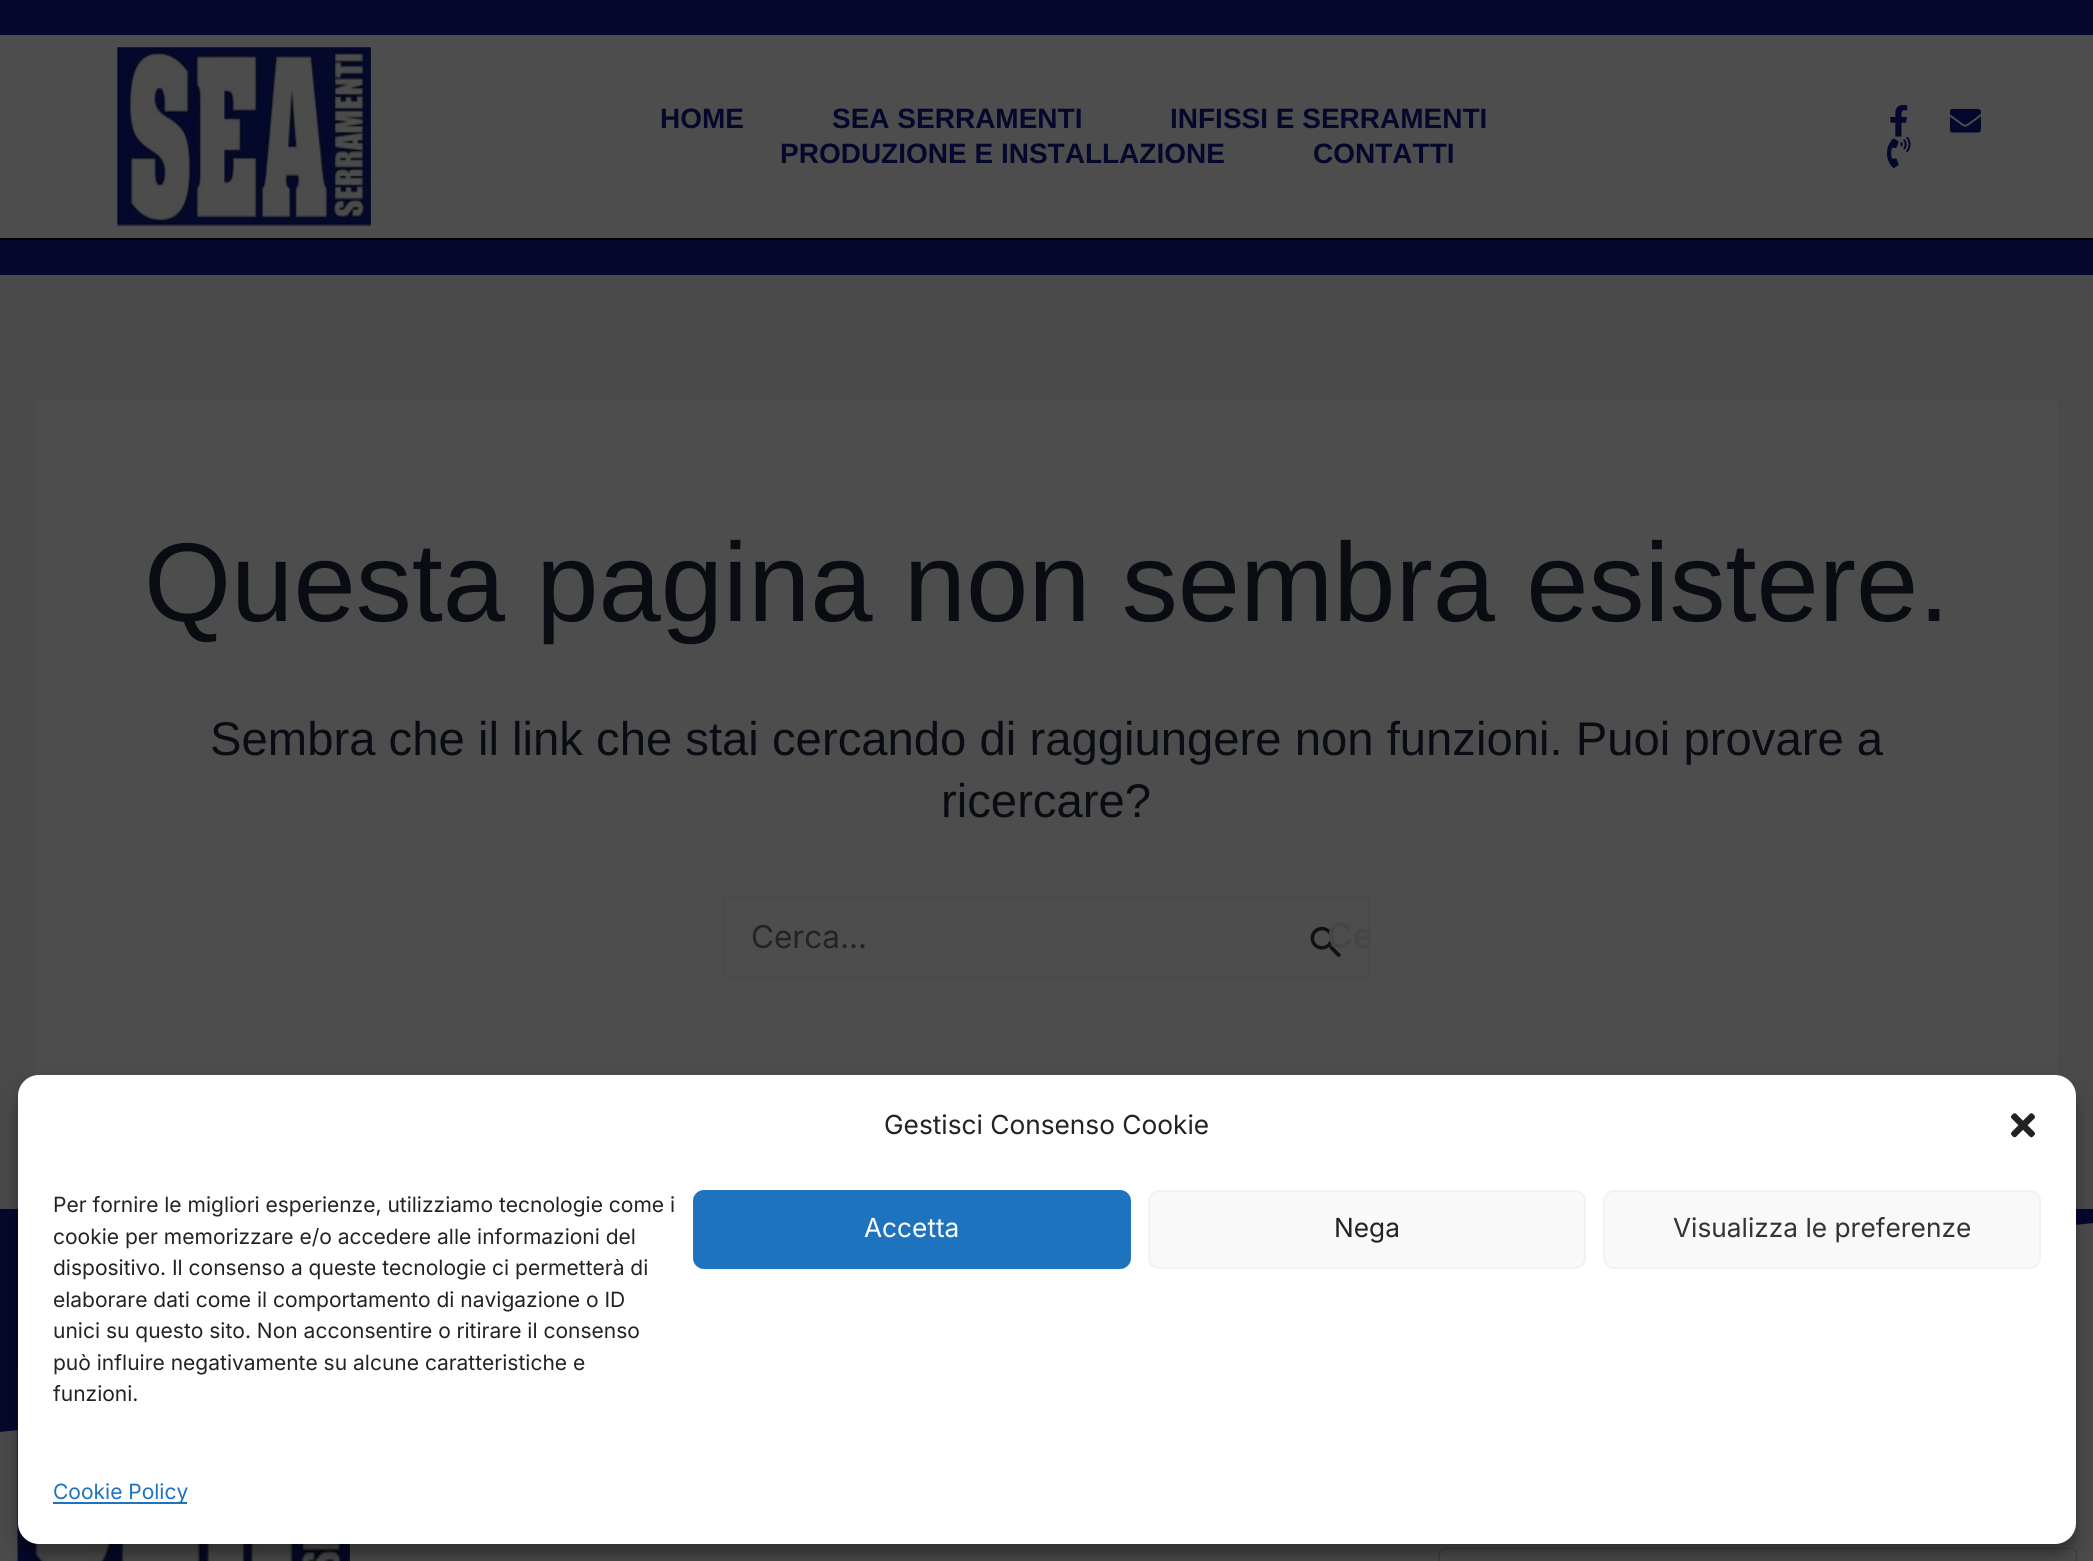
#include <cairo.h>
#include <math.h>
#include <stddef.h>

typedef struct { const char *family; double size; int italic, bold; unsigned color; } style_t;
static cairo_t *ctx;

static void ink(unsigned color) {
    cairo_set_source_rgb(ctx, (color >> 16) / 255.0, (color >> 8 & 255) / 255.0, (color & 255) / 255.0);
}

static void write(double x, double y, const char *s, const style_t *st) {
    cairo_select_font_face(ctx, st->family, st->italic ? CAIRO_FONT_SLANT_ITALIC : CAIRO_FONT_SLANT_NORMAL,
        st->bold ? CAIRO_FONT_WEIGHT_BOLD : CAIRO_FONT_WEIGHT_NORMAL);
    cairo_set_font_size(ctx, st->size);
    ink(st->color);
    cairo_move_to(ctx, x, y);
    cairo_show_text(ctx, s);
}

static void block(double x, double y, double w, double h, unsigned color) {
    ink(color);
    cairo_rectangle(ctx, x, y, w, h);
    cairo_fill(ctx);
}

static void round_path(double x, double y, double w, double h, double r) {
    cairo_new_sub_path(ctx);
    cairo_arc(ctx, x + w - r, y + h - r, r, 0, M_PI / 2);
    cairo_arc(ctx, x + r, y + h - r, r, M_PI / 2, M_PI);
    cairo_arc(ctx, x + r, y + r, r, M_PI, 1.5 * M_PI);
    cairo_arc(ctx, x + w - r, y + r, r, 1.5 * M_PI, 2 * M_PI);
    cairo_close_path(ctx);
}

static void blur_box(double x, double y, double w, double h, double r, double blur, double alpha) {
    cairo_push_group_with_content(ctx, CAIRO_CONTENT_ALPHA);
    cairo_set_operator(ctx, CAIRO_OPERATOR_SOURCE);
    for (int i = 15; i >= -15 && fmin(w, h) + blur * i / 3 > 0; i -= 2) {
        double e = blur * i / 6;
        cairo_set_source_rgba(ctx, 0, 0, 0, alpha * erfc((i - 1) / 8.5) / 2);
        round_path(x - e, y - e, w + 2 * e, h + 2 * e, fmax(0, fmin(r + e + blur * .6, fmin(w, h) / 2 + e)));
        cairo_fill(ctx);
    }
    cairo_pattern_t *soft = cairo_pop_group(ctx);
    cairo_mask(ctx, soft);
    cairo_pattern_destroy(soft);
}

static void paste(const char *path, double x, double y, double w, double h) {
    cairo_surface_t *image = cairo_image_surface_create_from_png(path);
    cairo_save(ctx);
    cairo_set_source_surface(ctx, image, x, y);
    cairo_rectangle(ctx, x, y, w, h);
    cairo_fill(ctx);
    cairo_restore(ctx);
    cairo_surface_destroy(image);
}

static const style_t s1 = {"Liberation Sans", 28, 0, 1, 0x05082c};
static const style_t s2 = {"Liberation Sans", 112, 0, 0, 0x090c12};
static const style_t s3 = {"Liberation Sans", 47.25, 0, 0, 0x090c12};
static const style_t s4 = {"Inter", 31.5, 0, 0, 0x232323};
static const style_t s5 = {"Inter SemiBold", 35, 0, 0, 0x464646};
static const style_t s6 = {"Inter", 26.25, 0, 0, 0x232323};
static const style_t s7 = {"Inter", 21, 0, 0, 0x232323};
static const style_t s8 = {"Inter", 26.25, 0, 0, 0xffffff};
static const style_t s9 = {"Inter", 26.25, 0, 0, 0x333333};
static const style_t s10 = {"Inter", 21, 0, 0, 0x1e73be};

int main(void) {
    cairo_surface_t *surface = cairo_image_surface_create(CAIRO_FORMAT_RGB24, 2093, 1561);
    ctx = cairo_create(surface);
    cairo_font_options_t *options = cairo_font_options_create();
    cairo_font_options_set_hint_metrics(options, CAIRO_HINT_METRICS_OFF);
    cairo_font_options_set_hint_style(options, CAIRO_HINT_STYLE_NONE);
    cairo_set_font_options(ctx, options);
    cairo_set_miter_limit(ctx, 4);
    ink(0x4a4a4a);
    cairo_paint(ctx);
    block(0, 0, 2093, 35, 0x05082c);
    block(0, 35, 2093, 203, 0x4d4d4d);
    block(0, 238, 2093, 2, 0x000000);
    paste("pic1.png", 117, 47, 254, 179);
    write(660, 128, "HOME", &s1);
    write(832, 128, "SEA SERRAMENTI", &s1);
    write(1170, 128, "INFISSI E SERRAMENTI", &s1);
    write(780, 163, "PRODUZIONE E INSTALLAZIONE", &s1);
    write(1313, 163, "CONTATTI", &s1);
    paste("pic2.png", 1890, 105, 18, 32);
    paste("pic3.png", 1950, 108, 31, 25);
    paste("pic4.png", 1886, 137, 25, 31);
    block(0, 240, 2093, 35, 0x05082c);
    block(35, 401, 2023, 675, 0x4d4d4d);
    write(144, 621, "Questa pagina non sembra esistere.", &s2);
    write(210, 755, "Sembra che il link che stai cercando di raggiungere non funzioni. Puoi provare a", &s3);
    write(941, 817, "ricercare?", &s3);
    round_path(724, 897, 645, 80, 3);
    ink(0x494a4a);
    cairo_stroke(ctx);
    write(751, 948, "Cerca...", &s4);
    paste("pic5.png", 1310, 926, 31, 32);
    cairo_save(ctx);
    round_path(1292, 896, 78, 81, 4);
    cairo_clip(ctx);
    write(1327, 948, "Ce", &s5);
    cairo_restore(ctx);
    block(0, 1223, 2093, 338, 0x4c4c4d);
    ink(0x05082c);
    cairo_new_path(ctx);
    cairo_move_to(ctx, 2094, 1223);
    cairo_line_to(ctx, 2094, 1209);
    cairo_line_to(ctx, -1, 1209);
    cairo_line_to(ctx, -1, 1432);
    cairo_close_path(ctx);
    cairo_fill(ctx);
    paste("pic6.png", 17, 1368, 333, 193);
    ink(0x000000);
    blur_box(1440, 1549, 636, 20, 5, 1, 0.5);
    ink(0x4d4d4d);
    round_path(1440, 1549, 636, 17, 5);
    cairo_fill(ctx);
    ink(0x000000);
    blur_box(18, 1085, 2058, 469, 21, 5, 0.23);
    blur_box(18, 1092, 2058, 469, 21, 17.5, 0.19);
    ink(0xffffff);
    round_path(18, 1075, 2058, 469, 21);
    cairo_fill(ctx);
    write(884, 1134, "Gestisci Consenso Cookie", &s6);
    paste("pic7.png", 2011, 1113, 24, 25);
    write(53, 1212, "Per fornire le migliori esperienze, utilizziamo tecnologie come i", &s7);
    write(53, 1244, "cookie per memorizzare e/o accedere alle informazioni del", &s7);
    write(53, 1275, "dispositivo. Il consenso a queste tecnologie ci permetterà di", &s7);
    write(53, 1307, "elaborare dati come il comportamento di navigazione o ID", &s7);
    write(53, 1338, "unici su questo sito. Non acconsentire o ritirare il consenso", &s7);
    write(53, 1370, "può influire negativamente su alcune caratteristiche e", &s7);
    write(53, 1401, "funzioni.", &s7);
    ink(0x1e73be);
    round_path(694, 1191, 436, 77, 10);
    cairo_fill_preserve(ctx);
    cairo_stroke(ctx);
    write(864, 1237, "Accetta", &s8);
    ink(0xf9f9f9);
    round_path(1149, 1191, 436, 77, 10);
    cairo_fill_preserve(ctx);
    ink(0xf2f2f2);
    cairo_stroke(ctx);
    write(1334, 1237, "Nega", &s6);
    ink(0xf9f9f9);
    round_path(1604, 1191, 436, 77, 10);
    cairo_fill_preserve(ctx);
    ink(0xf2f2f2);
    cairo_stroke(ctx);
    write(1673, 1237, "Visualizza le preferenze", &s9);
    block(53, 1502, 134, 2, 0x1e73be);
    write(53, 1499, "Cookie Policy", &s10);
    cairo_surface_write_to_png(surface, "screenshot.png");
    cairo_font_options_destroy(options);
    cairo_destroy(ctx);
    cairo_surface_destroy(surface);
    return 0;
}
